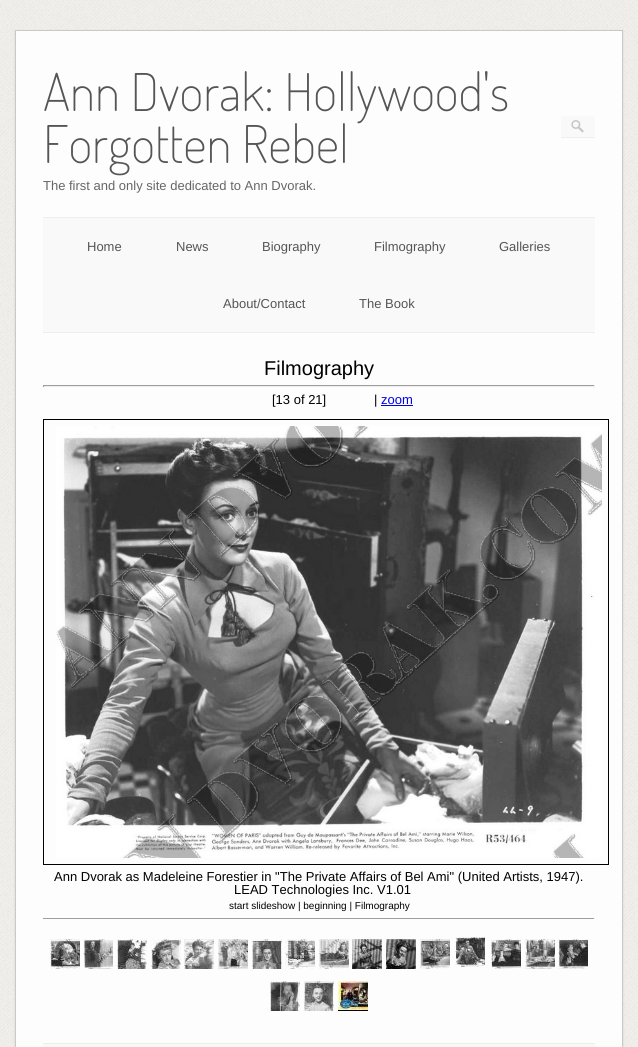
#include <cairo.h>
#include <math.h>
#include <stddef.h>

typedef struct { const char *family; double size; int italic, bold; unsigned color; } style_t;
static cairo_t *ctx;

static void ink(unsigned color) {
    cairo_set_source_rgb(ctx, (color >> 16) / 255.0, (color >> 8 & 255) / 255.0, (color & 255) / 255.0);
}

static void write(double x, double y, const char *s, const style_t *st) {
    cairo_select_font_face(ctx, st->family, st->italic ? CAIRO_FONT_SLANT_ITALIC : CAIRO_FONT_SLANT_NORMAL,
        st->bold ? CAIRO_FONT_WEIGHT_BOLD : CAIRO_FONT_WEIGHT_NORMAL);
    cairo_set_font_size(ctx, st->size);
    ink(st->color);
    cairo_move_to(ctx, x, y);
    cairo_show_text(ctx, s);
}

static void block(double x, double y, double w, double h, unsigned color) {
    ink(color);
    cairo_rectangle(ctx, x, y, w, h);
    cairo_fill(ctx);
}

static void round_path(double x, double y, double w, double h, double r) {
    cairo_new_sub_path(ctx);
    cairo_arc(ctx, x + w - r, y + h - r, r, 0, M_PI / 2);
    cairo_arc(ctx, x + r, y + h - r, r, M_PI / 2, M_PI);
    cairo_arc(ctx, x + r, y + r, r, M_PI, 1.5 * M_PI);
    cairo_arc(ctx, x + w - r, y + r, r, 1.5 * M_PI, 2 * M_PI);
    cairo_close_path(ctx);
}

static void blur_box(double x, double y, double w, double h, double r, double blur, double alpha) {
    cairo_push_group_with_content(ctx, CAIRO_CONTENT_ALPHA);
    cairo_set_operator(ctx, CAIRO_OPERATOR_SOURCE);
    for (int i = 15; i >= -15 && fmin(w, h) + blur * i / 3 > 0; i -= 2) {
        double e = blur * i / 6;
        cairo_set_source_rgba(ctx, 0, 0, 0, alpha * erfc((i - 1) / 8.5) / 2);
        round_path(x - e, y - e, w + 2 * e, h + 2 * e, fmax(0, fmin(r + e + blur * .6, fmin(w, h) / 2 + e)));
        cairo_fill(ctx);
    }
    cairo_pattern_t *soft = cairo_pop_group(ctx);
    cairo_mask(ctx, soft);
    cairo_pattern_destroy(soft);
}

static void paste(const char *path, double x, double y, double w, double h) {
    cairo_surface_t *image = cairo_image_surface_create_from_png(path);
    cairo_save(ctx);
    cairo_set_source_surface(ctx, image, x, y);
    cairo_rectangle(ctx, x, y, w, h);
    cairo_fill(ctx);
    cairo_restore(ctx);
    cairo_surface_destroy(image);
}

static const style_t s1 = {"Dosis ExtraLight", 52, 0, 0, 0x555555};
static const style_t s2 = {"Liberation Sans", 13, 0, 0, 0x666666};
static const style_t s3 = {"Liberation Sans", 13, 0, 0, 0x555555};
static const style_t s4 = {"Liberation Sans", 20, 0, 0, 0x000000};
static const style_t s5 = {"Liberation Sans", 13, 0, 0, 0x000000};
static const style_t s6 = {"Liberation Sans", 13, 0, 0, 0x0000ee};
static const style_t s7 = {"Liberation Sans", 10, 0, 0, 0x000000};

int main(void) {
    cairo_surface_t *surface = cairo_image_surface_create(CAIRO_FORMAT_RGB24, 638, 1047);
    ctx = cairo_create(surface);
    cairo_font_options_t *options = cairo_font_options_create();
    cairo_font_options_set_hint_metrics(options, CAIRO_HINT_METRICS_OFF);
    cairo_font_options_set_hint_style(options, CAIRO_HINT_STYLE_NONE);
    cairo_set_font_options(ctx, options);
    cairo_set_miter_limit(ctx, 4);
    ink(0xffffff);
    cairo_paint(ctx);
    paste("pic1.png", 0, 0, 638, 1047);
    ink(0x000000);
    blur_box(15, 31, 608, 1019, 0, 1, 0.1);
    ink(0xfdfdfd);
    cairo_rectangle(ctx, 15.5, 30.5, 607, 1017);
    cairo_fill_preserve(ctx);
    ink(0xcbc9c7);
    cairo_set_line_width(ctx, 1);
    cairo_stroke(ctx);
    write(43, 111, "Ann Dvorak: Hollywood's", &s1);
    write(43, 163, "Forgotten Rebel", &s1);
    write(43, 190, "The first and only site dedicated to Ann Dvorak.", &s2);
    block(561, 116, 34, 21, 0xf9f9f9);
    paste("pic2.png", 571, 120, 13, 13);
    block(561, 137, 34, 1, 0xeeeeee);
    block(43, 218, 552, 114, 0xf9f9f9);
    block(43, 217, 552, 1, 0xeeeeee);
    block(43, 332, 552, 1, 0xeeeeee);
    write(87, 251, "Home", &s3);
    write(176, 251, "News", &s3);
    write(262, 251, "Biography", &s3);
    write(374, 251, "Filmography", &s3);
    write(499, 251, "Galleries", &s3);
    write(223, 308, "About/Contact", &s3);
    write(359, 308, "The Book", &s3);
    write(264, 375, "Filmography", &s4);
    block(43, 385, 552, 1, 0x9f9f9f);
    block(594, 385, 1, 2, 0xeeeeee);
    block(43, 386, 552, 1, 0xeeeeee);
    block(43, 385, 1, 2, 0x9f9f9f);
    write(272, 404, "[13 of 21]", &s5);
    write(374, 404, "|", &s5);
    write(381, 404, "zoom", &s6);
    block(381, 405, 32, 1, 0x0000ee);
    cairo_rectangle(ctx, 43.5, 419.5, 565, 445);
    ink(0x000000);
    cairo_stroke(ctx);
    paste("pic3.png", 56, 426, 546, 432);
    write(54, 881, "Ann Dvorak as Madeleine Forestier in \"The Private Affairs of Bel Ami\" (United Artists, 1947).", &s5);
    write(234, 894, "LEAD Technologies Inc. V1.01", &s5);
    write(229, 909, "start slideshow | beginning | Filmography", &s7);
    block(43, 918, 552, 1, 0x9f9f9f);
    block(594, 918, 1, 1, 0xeeeeee);
    paste("pic4.png", 50, 939, 30, 30);
    paste("pic5.png", 83, 939, 30, 30);
    paste("pic6.png", 117, 939, 30, 30);
    paste("pic7.png", 151, 939, 30, 30);
    paste("pic8.png", 184, 939, 30, 30);
    paste("pic9.png", 218, 939, 30, 30);
    paste("pic10.png", 252, 939, 30, 30);
    paste("pic11.png", 285, 939, 30, 30);
    paste("pic12.png", 319, 939, 30, 30);
    paste("pic13.png", 352, 939, 30, 30);
    paste("pic14.png", 386, 939, 30, 30);
    paste("pic15.png", 420, 939, 30, 30);
    paste("pic16.png", 455, 937, 30, 30);
    paste("pic17.png", 491, 939, 30, 30);
    paste("pic18.png", 525, 939, 30, 30);
    paste("pic19.png", 558, 939, 30, 30);
    paste("pic20.png", 270, 981, 30, 30);
    paste("pic21.png", 304, 981, 30, 30);
    paste("pic22.png", 338, 981, 30, 30);
    block(43, 1044, 552, 3, 0xf9f9f9);
    block(43, 1043, 552, 1, 0xeeeeee);
    cairo_surface_write_to_png(surface, "screenshot.png");
    cairo_font_options_destroy(options);
    cairo_destroy(ctx);
    cairo_surface_destroy(surface);
    return 0;
}
